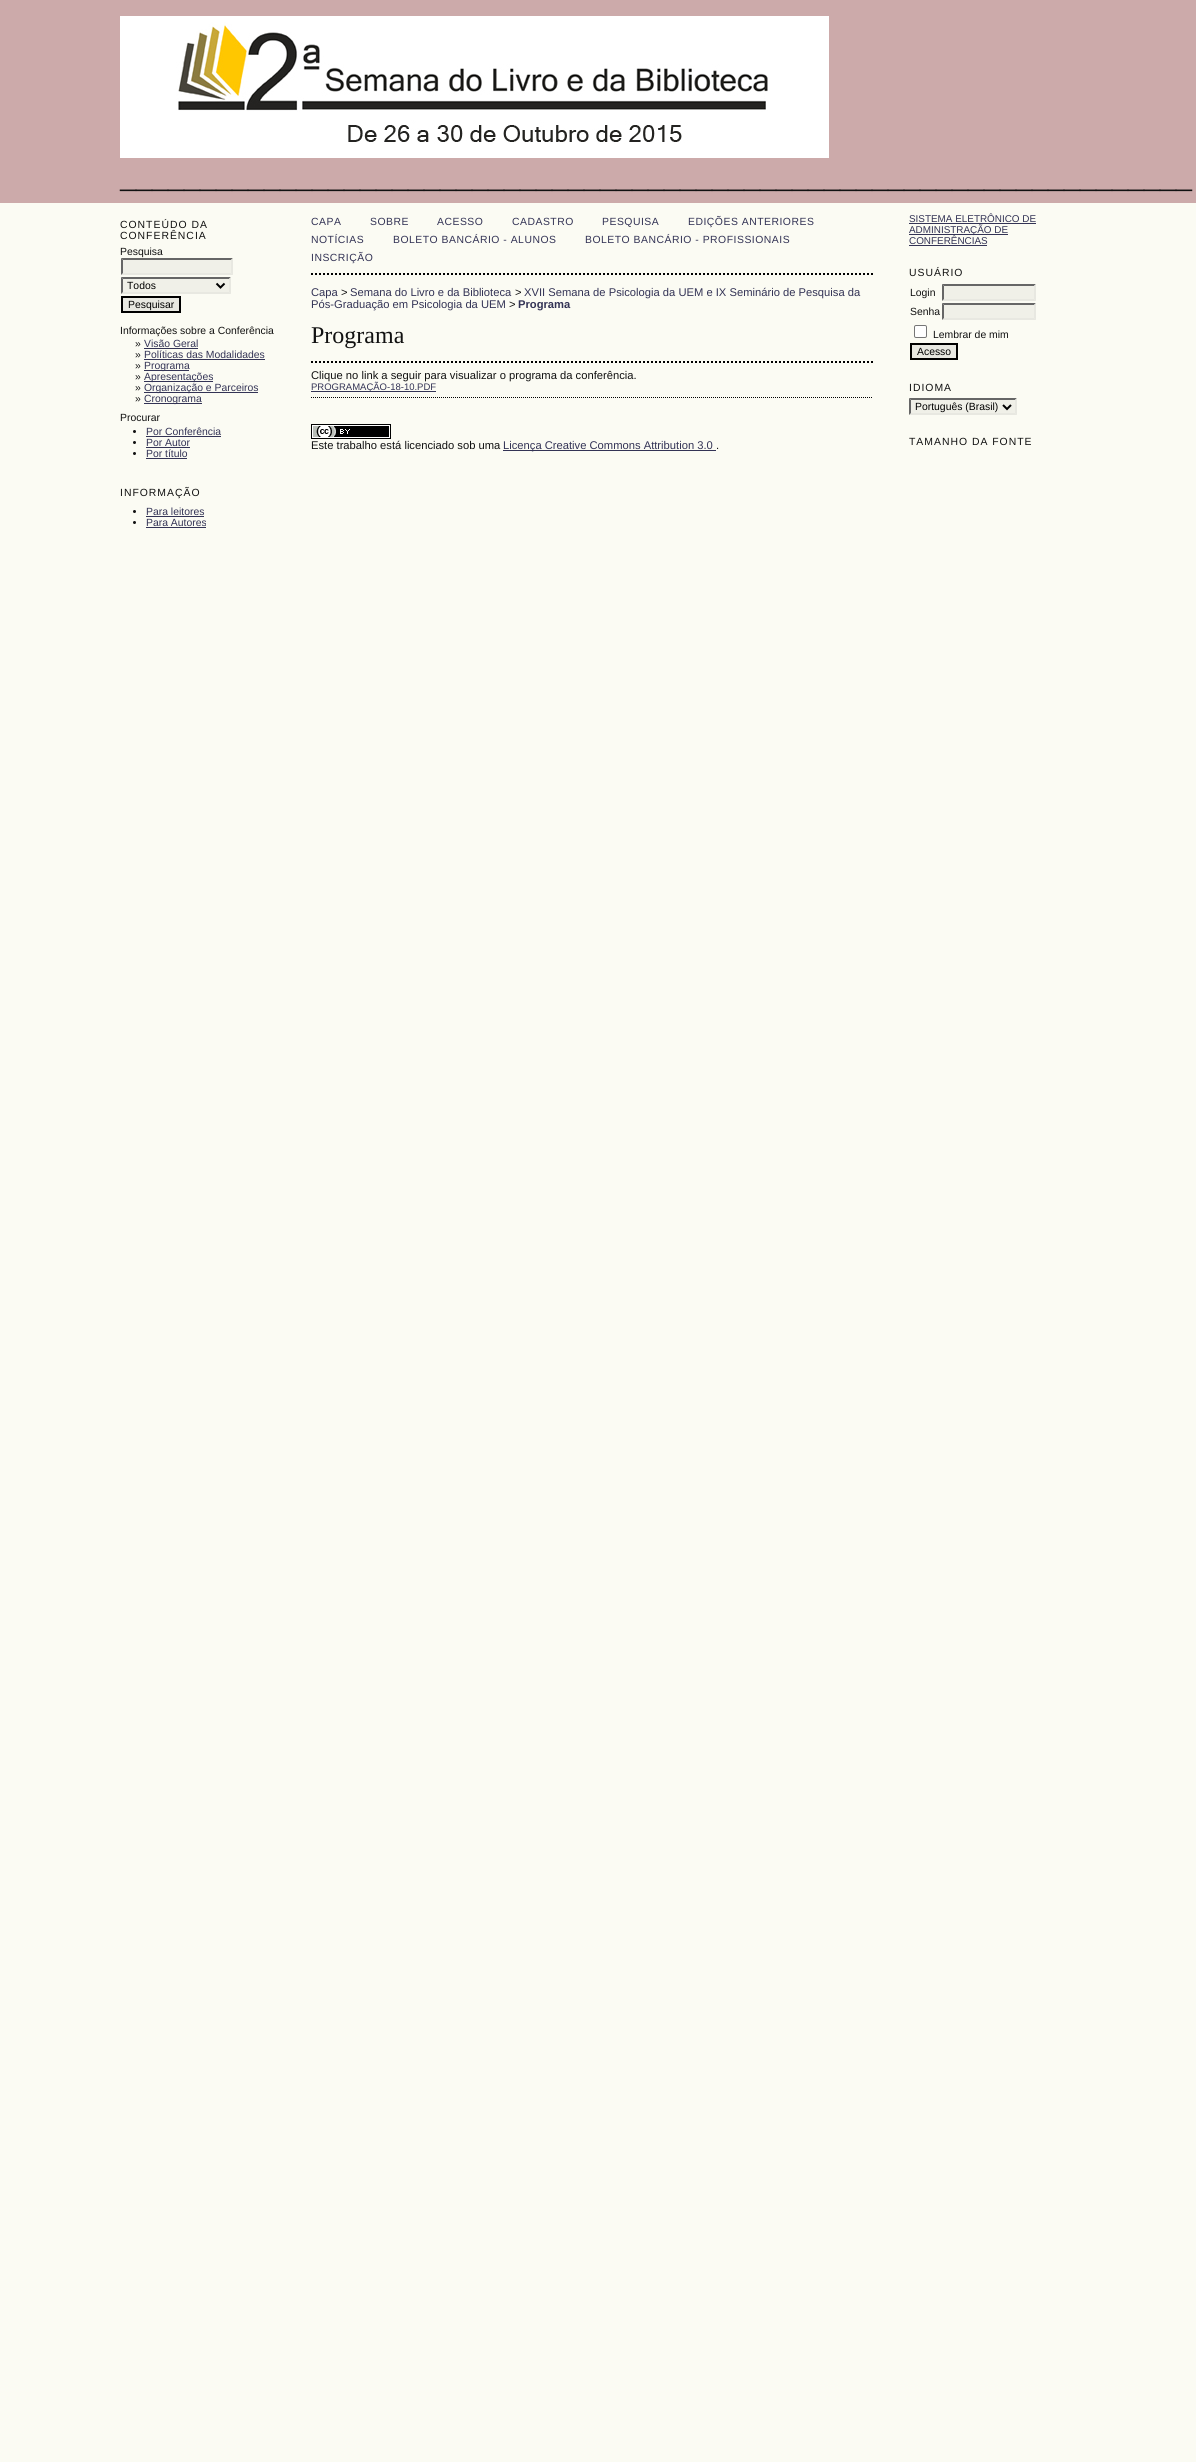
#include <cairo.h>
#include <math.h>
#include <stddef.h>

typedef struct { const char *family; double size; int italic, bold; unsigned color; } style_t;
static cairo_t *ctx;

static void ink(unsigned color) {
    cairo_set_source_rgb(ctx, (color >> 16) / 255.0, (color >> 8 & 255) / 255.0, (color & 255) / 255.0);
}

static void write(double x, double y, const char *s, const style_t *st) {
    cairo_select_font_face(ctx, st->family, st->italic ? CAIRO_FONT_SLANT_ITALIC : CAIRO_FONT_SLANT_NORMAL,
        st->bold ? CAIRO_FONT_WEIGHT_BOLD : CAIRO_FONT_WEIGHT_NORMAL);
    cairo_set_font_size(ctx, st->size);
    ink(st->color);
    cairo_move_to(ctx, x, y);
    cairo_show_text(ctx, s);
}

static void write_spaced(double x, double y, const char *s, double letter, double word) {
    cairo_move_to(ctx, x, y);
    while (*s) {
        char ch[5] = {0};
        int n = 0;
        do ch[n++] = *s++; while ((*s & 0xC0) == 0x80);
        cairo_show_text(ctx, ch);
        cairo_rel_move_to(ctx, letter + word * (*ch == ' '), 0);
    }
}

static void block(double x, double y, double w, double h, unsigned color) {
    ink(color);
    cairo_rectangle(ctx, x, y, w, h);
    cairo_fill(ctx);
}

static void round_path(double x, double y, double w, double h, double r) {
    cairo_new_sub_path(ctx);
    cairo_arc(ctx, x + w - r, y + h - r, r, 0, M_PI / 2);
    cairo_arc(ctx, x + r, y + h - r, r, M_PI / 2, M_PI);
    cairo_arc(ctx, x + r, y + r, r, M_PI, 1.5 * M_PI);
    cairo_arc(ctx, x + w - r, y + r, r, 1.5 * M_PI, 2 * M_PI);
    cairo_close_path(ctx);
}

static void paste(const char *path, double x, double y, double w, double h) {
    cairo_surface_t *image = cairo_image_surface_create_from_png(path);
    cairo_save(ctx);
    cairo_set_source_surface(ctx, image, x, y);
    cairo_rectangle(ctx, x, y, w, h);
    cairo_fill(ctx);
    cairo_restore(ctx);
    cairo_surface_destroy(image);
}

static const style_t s1 = {"Liberation Serif", 32, 0, 0, 0x111111};
static const style_t s2 = {"Liberation Sans", 10.4, 0, 0, 0x111111};
static const style_t s3 = {"Liberation Sans", 10.4, 0, 0, 0x000000};
static const style_t s4 = {"Liberation Sans", 10.4, 0, 0, 0x333355};
static const style_t s5 = {"Liberation Sans", 9.9, 0, 0, 0x333355};
static const style_t s6 = {"Liberation Sans", 11.2, 0, 0, 0x333355};
static const style_t s7 = {"Liberation Sans", 11.2, 0, 0, 0x111111};
static const style_t s8 = {"Liberation Sans", 11.2, 0, 1, 0x333355};
static const style_t s9 = {"Liberation Serif", 24, 0, 0, 0x111111};
static const style_t s10 = {"Liberation Sans", 9.5, 0, 0, 0x333355};

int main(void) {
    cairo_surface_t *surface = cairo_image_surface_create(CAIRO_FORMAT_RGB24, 1196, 2462);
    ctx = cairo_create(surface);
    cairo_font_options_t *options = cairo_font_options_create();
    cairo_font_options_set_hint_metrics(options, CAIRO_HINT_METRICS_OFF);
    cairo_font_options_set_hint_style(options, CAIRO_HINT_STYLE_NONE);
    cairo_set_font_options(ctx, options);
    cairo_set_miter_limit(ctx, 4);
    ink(0xfbfbf3);
    cairo_paint(ctx);
    block(0, 0, 1196, 203, 0xccaaaa);
    paste("pic1.png", 120, 16, 709, 142);
    write(120, 187, "___________________________________________________________________", &s1);
    cairo_select_font_face(ctx, "Liberation Sans", CAIRO_FONT_SLANT_NORMAL, CAIRO_FONT_WEIGHT_NORMAL);
    cairo_set_font_size(ctx, 10.4);
    write_spaced(120, 228, "CONTEÚDO DA", 1, 0);
    write_spaced(120, 239, "CONFERÊNCIA", 1, 0);
    write(120, 255, "Pesquisa", &s2);
    block(121, 258, 112, 17, 0xf0f0e8);
    ink(0x666666);
    cairo_new_path(ctx);
    cairo_move_to(ctx, 121, 258);
    cairo_line_to(ctx, 233, 258);
    cairo_line_to(ctx, 231, 260);
    cairo_line_to(ctx, 123, 260);
    cairo_close_path(ctx);
    cairo_fill(ctx);
    ink(0xe8e8e1);
    cairo_new_path(ctx);
    cairo_move_to(ctx, 233, 258);
    cairo_line_to(ctx, 233, 275);
    cairo_line_to(ctx, 231, 273);
    cairo_line_to(ctx, 231, 260);
    cairo_close_path(ctx);
    cairo_fill(ctx);
    cairo_new_path(ctx);
    cairo_move_to(ctx, 233, 275);
    cairo_line_to(ctx, 121, 275);
    cairo_line_to(ctx, 123, 273);
    cairo_line_to(ctx, 231, 273);
    cairo_close_path(ctx);
    cairo_fill(ctx);
    ink(0x666666);
    cairo_new_path(ctx);
    cairo_move_to(ctx, 121, 275);
    cairo_line_to(ctx, 121, 258);
    cairo_line_to(ctx, 123, 260);
    cairo_line_to(ctx, 123, 273);
    cairo_close_path(ctx);
    cairo_fill(ctx);
    block(121, 277, 110, 17, 0xf0f0e8);
    ink(0x666666);
    cairo_new_path(ctx);
    cairo_move_to(ctx, 121, 277);
    cairo_line_to(ctx, 231, 277);
    cairo_line_to(ctx, 229, 279);
    cairo_line_to(ctx, 123, 279);
    cairo_close_path(ctx);
    cairo_fill(ctx);
    ink(0xe8e8e1);
    cairo_new_path(ctx);
    cairo_move_to(ctx, 231, 277);
    cairo_line_to(ctx, 231, 294);
    cairo_line_to(ctx, 229, 292);
    cairo_line_to(ctx, 229, 279);
    cairo_close_path(ctx);
    cairo_fill(ctx);
    cairo_new_path(ctx);
    cairo_move_to(ctx, 231, 294);
    cairo_line_to(ctx, 121, 294);
    cairo_line_to(ctx, 123, 292);
    cairo_line_to(ctx, 229, 292);
    cairo_close_path(ctx);
    cairo_fill(ctx);
    ink(0x666666);
    cairo_new_path(ctx);
    cairo_move_to(ctx, 121, 294);
    cairo_line_to(ctx, 121, 277);
    cairo_line_to(ctx, 123, 279);
    cairo_line_to(ctx, 123, 292);
    cairo_close_path(ctx);
    cairo_fill(ctx);
    cairo_new_path(ctx);
    cairo_move_to(ctx, 216.5, 283.5);
    cairo_line_to(ctx, 220.5, 287.5);
    cairo_line_to(ctx, 224.5, 283.5);
    ink(0x000000);
    cairo_stroke(ctx);
    write(127, 289, "Todos", &s3);
    ink(0xe8e8e1);
    cairo_rectangle(ctx, 122, 297, 58, 15);
    cairo_fill_preserve(ctx);
    ink(0x000000);
    cairo_stroke(ctx);
    write(128, 308, "Pesquisar", &s3);
    write(120, 334, "Informações sobre a Conferência", &s2);
    write(135, 347, "»", &s2);
    write(144, 347, "Visão Geral", &s4);
    block(144, 348, 54, 1, 0x333355);
    write(135, 358, "»", &s2);
    write(144, 358, "Políticas das Modalidades", &s4);
    block(144, 359, 121, 1, 0x333355);
    write(135, 369, "»", &s2);
    block(144, 370, 45, 1, 0x333355);
    write(144, 369, "Programa", &s4);
    write(135, 380, "»", &s2);
    block(144, 381, 69, 1, 0x333355);
    write(144, 380, "Apresentações", &s4);
    write(135, 391, "»", &s2);
    block(144, 392, 114, 1, 0x333355);
    write(144, 391, "Organização e Parceiros", &s4);
    write(135, 402, "»", &s2);
    block(144, 403, 58, 1, 0x333355);
    write(144, 402, "Cronograma", &s4);
    write(120, 421, "Procurar", &s2);
    cairo_new_path(ctx);
    cairo_arc(ctx, 134.5, 431.5, 1.5, 0, 2 * M_PI);
    cairo_fill(ctx);
    write(146, 435, "Por Conferência", &s4);
    block(146, 436, 75, 1, 0x333355);
    ink(0x111111);
    cairo_new_path(ctx);
    cairo_arc(ctx, 134.5, 442.5, 1.5, 0, 2 * M_PI);
    cairo_fill(ctx);
    write(146, 446, "Por Autor", &s4);
    block(146, 447, 44, 1, 0x333355);
    ink(0x111111);
    cairo_new_path(ctx);
    cairo_arc(ctx, 134.5, 453.5, 1.5, 0, 2 * M_PI);
    cairo_fill(ctx);
    write(146, 457, "Por título", &s4);
    block(146, 458, 41, 1, 0x333355);
    ink(0x111111);
    write_spaced(120, 496, "INFORMAÇÃO", 1, 0);
    cairo_new_path(ctx);
    cairo_arc(ctx, 134.5, 511.5, 1.5, 0, 2 * M_PI);
    cairo_fill(ctx);
    write(146, 515, "Para leitores", &s4);
    block(146, 516, 58, 1, 0x333355);
    ink(0x111111);
    cairo_new_path(ctx);
    cairo_arc(ctx, 134.5, 522.5, 1.5, 0, 2 * M_PI);
    cairo_fill(ctx);
    write(146, 526, "Para Autores", &s4);
    block(146, 527, 60, 1, 0x333355);
    write(909, 222, "SISTEMA ELETRÔNICO DE", &s5);
    block(909, 223, 127, 1, 0x333355);
    block(909, 234, 99, 1, 0x333355);
    write(909, 233, "ADMINISTRAÇÃO DE", &s5);
    write(909, 244, "CONFERÊNCIAS", &s5);
    block(909, 245, 78, 1, 0x333355);
    cairo_set_font_size(ctx, 10.4);
    ink(0x111111);
    write_spaced(909, 276, "USUÁRIO", 1, 0);
    write(910, 296, "Login", &s2);
    block(942, 284, 94, 17, 0xf0f0e8);
    ink(0x666666);
    cairo_new_path(ctx);
    cairo_move_to(ctx, 942, 284);
    cairo_line_to(ctx, 1036, 284);
    cairo_line_to(ctx, 1034, 286);
    cairo_line_to(ctx, 944, 286);
    cairo_close_path(ctx);
    cairo_fill(ctx);
    ink(0xe8e8e1);
    cairo_new_path(ctx);
    cairo_move_to(ctx, 1036, 284);
    cairo_line_to(ctx, 1036, 301);
    cairo_line_to(ctx, 1034, 299);
    cairo_line_to(ctx, 1034, 286);
    cairo_close_path(ctx);
    cairo_fill(ctx);
    cairo_new_path(ctx);
    cairo_move_to(ctx, 1036, 301);
    cairo_line_to(ctx, 942, 301);
    cairo_line_to(ctx, 944, 299);
    cairo_line_to(ctx, 1034, 299);
    cairo_close_path(ctx);
    cairo_fill(ctx);
    ink(0x666666);
    cairo_new_path(ctx);
    cairo_move_to(ctx, 942, 301);
    cairo_line_to(ctx, 942, 284);
    cairo_line_to(ctx, 944, 286);
    cairo_line_to(ctx, 944, 299);
    cairo_close_path(ctx);
    cairo_fill(ctx);
    write(910, 315, "Senha", &s2);
    block(942, 303, 94, 17, 0xf0f0e8);
    ink(0x666666);
    cairo_new_path(ctx);
    cairo_move_to(ctx, 942, 303);
    cairo_line_to(ctx, 1036, 303);
    cairo_line_to(ctx, 1034, 305);
    cairo_line_to(ctx, 944, 305);
    cairo_close_path(ctx);
    cairo_fill(ctx);
    ink(0xe8e8e1);
    cairo_new_path(ctx);
    cairo_move_to(ctx, 1036, 303);
    cairo_line_to(ctx, 1036, 320);
    cairo_line_to(ctx, 1034, 318);
    cairo_line_to(ctx, 1034, 305);
    cairo_close_path(ctx);
    cairo_fill(ctx);
    cairo_new_path(ctx);
    cairo_move_to(ctx, 1036, 320);
    cairo_line_to(ctx, 942, 320);
    cairo_line_to(ctx, 944, 318);
    cairo_line_to(ctx, 1034, 318);
    cairo_close_path(ctx);
    cairo_fill(ctx);
    ink(0x666666);
    cairo_new_path(ctx);
    cairo_move_to(ctx, 942, 320);
    cairo_line_to(ctx, 942, 303);
    cairo_line_to(ctx, 944, 305);
    cairo_line_to(ctx, 944, 318);
    cairo_close_path(ctx);
    cairo_fill(ctx);
    ink(0xffffff);
    round_path(914.5, 325.5, 12, 12, 1.5);
    cairo_fill_preserve(ctx);
    ink(0x767676);
    cairo_set_line_width(ctx, 1);
    cairo_stroke(ctx);
    write(933, 338, "Lembrar de mim", &s2);
    ink(0xe8e8e1);
    cairo_rectangle(ctx, 911, 344, 46, 15);
    cairo_fill_preserve(ctx);
    ink(0x000000);
    cairo_set_line_width(ctx, 2);
    cairo_stroke(ctx);
    write(917, 355, "Acesso", &s3);
    ink(0x111111);
    write_spaced(909, 391, "IDIOMA", 1, 0);
    block(909, 398, 108, 17, 0xf0f0e8);
    ink(0x666666);
    cairo_new_path(ctx);
    cairo_move_to(ctx, 909, 398);
    cairo_line_to(ctx, 1017, 398);
    cairo_line_to(ctx, 1015, 400);
    cairo_line_to(ctx, 911, 400);
    cairo_close_path(ctx);
    cairo_fill(ctx);
    ink(0xe8e8e1);
    cairo_new_path(ctx);
    cairo_move_to(ctx, 1017, 398);
    cairo_line_to(ctx, 1017, 415);
    cairo_line_to(ctx, 1015, 413);
    cairo_line_to(ctx, 1015, 400);
    cairo_close_path(ctx);
    cairo_fill(ctx);
    cairo_new_path(ctx);
    cairo_move_to(ctx, 1017, 415);
    cairo_line_to(ctx, 909, 415);
    cairo_line_to(ctx, 911, 413);
    cairo_line_to(ctx, 1015, 413);
    cairo_close_path(ctx);
    cairo_fill(ctx);
    ink(0x666666);
    cairo_new_path(ctx);
    cairo_move_to(ctx, 909, 415);
    cairo_line_to(ctx, 909, 398);
    cairo_line_to(ctx, 911, 400);
    cairo_line_to(ctx, 911, 413);
    cairo_close_path(ctx);
    cairo_fill(ctx);
    cairo_new_path(ctx);
    cairo_move_to(ctx, 1003, 405);
    cairo_line_to(ctx, 1007, 409);
    cairo_line_to(ctx, 1011, 405);
    ink(0x000000);
    cairo_stroke(ctx);
    write(915, 410, "Português (Brasil)", &s3);
    ink(0x111111);
    write_spaced(909, 445, "TAMANHO DA FONTE", 1, 0);
    cairo_new_path(ctx);
    cairo_move_to(ctx, 311, 274);
    cairo_line_to(ctx, 873, 274);
    ink(0x000000);
    cairo_set_dash(ctx, (double[]){2, 2}, 2, 0);
    cairo_stroke(ctx);
    ink(0x333355);
    write_spaced(311, 225, "CAPA", 0.5, 0);
    write_spaced(370, 225, "SOBRE", 0.5, 0);
    write_spaced(437, 225, "ACESSO", 0.5, 0);
    write_spaced(512, 225, "CADASTRO", 0.5, 0);
    write_spaced(602, 225, "PESQUISA", 0.5, 0);
    write_spaced(688, 225, "EDIÇÕES ANTERIORES", 0.5, 0);
    write_spaced(311, 243, "NOTÍCIAS", 0.5, 0);
    write_spaced(393, 243, "BOLETO BANCÁRIO - ALUNOS", 0.5, 0);
    write_spaced(585, 243, "BOLETO BANCÁRIO - PROFISSIONAIS", 0.5, 0);
    write_spaced(311, 261, "INSCRIÇÃO", 0.5, 0);
    write(311, 296, "Capa", &s6);
    write(341, 296, ">", &s7);
    write(350, 296, "Semana do Livro e da Biblioteca", &s6);
    write(515, 296, ">", &s7);
    write(524, 296, "XVII Semana de Psicologia da UEM e IX Seminário de Pesquisa da", &s6);
    write(311, 308, "Pós-Graduação em Psicologia da UEM", &s6);
    write(509, 308, ">", &s7);
    write(518, 308, "Programa", &s8);
    write(311, 343, "Programa", &s9);
    cairo_new_path(ctx);
    cairo_move_to(ctx, 311, 362);
    cairo_line_to(ctx, 873, 362);
    ink(0x000000);
    cairo_stroke(ctx);
    write(311, 379, "Clique no link a seguir para visualizar o programa da conferência.", &s7);
    block(311, 391, 125, 1, 0x333355);
    write(311, 390, "PROGRAMAÇÃO-18-10.PDF", &s10);
    cairo_new_path(ctx);
    cairo_move_to(ctx, 311, 397.5);
    cairo_line_to(ctx, 873, 397.5);
    ink(0x000000);
    cairo_set_line_width(ctx, 1);
    cairo_set_dash(ctx, (double[]){1, 1}, 2, 0);
    cairo_stroke(ctx);
    paste("pic2.png", 311, 424, 80, 15);
    write(311, 449, "Este trabalho está licenciado sob uma", &s7);
    block(503, 450, 213, 1, 0x333355);
    write(503, 449, "Licença Creative Commons Attribution 3.0", &s6);
    write(716, 449, ".", &s7);
    cairo_surface_write_to_png(surface, "screenshot.png");
    cairo_font_options_destroy(options);
    cairo_destroy(ctx);
    cairo_surface_destroy(surface);
    return 0;
}
